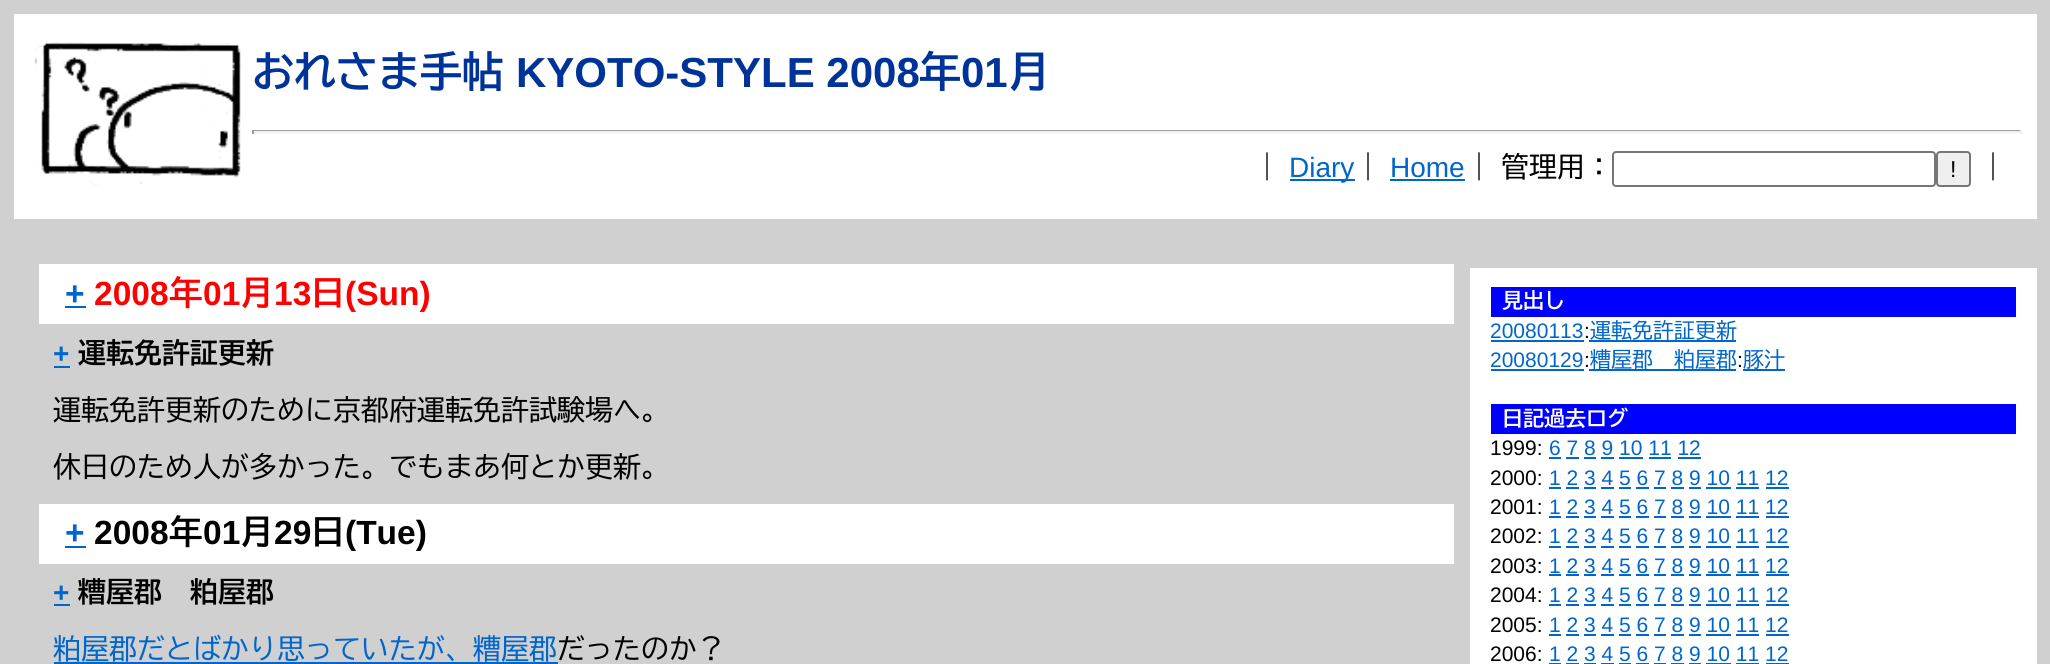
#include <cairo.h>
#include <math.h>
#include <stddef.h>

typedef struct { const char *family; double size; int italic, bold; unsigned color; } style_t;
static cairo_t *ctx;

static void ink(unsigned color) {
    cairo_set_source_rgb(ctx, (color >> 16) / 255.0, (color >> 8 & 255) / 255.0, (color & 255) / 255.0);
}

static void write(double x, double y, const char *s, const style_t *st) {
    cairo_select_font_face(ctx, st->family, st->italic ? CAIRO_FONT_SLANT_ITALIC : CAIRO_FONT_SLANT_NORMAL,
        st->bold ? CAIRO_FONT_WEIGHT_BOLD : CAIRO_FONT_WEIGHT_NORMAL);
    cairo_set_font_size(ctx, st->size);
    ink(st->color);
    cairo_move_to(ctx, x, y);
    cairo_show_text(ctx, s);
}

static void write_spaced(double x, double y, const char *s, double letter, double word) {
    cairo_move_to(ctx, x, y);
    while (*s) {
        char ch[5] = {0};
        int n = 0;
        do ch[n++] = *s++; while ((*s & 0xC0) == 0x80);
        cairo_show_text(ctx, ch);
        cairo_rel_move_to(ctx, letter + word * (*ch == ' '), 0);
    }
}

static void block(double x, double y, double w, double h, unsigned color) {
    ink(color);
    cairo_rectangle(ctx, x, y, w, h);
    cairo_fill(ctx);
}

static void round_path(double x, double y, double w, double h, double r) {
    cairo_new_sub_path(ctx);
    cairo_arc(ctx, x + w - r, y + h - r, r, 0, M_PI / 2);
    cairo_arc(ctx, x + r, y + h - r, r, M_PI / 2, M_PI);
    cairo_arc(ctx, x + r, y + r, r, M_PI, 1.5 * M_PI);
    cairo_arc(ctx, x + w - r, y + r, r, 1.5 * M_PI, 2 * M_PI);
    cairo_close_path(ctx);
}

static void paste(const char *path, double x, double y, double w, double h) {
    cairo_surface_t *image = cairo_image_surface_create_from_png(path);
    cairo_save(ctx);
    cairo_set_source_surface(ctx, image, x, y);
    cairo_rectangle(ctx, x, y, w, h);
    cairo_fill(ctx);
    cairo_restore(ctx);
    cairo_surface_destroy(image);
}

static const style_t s1 = {"BIZ UDGothic", 42, 0, 1, 0x003399};
static const style_t s2 = {"Liberation Sans", 42, 0, 1, 0x003399};
static const style_t s3 = {"BIZ UDGothic", 28, 0, 0, 0x000000};
static const style_t s4 = {"Liberation Sans", 28, 0, 0, 0x0066cc};
static const style_t s5 = {"Liberation Sans", 23, 0, 0, 0x000000};
static const style_t s6 = {"Liberation Sans", 33.5, 0, 1, 0x0066cc};
static const style_t s7 = {"Liberation Sans", 33.5, 0, 1, 0xff0000};
static const style_t s8 = {"BIZ UDGothic", 33.5, 0, 1, 0xff0000};
static const style_t s9 = {"Liberation Sans", 28, 0, 1, 0x0066cc};
static const style_t s10 = {"BIZ UDGothic", 28, 0, 1, 0x000000};
static const style_t s11 = {"Liberation Sans", 33.5, 0, 1, 0x000000};
static const style_t s12 = {"BIZ UDGothic", 33.5, 0, 1, 0x000000};
static const style_t s13 = {"BIZ UDGothic", 28, 0, 0, 0x0066cc};
static const style_t s14 = {"BIZ UDGothic", 21, 0, 1, 0xffffff};
static const style_t s15 = {"Liberation Sans", 21, 0, 0, 0x0066cc};
static const style_t s16 = {"Liberation Sans", 21, 0, 0, 0x000000};
static const style_t s17 = {"BIZ UDGothic", 21, 0, 0, 0x0066cc};

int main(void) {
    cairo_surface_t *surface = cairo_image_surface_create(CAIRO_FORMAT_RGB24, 2050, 664);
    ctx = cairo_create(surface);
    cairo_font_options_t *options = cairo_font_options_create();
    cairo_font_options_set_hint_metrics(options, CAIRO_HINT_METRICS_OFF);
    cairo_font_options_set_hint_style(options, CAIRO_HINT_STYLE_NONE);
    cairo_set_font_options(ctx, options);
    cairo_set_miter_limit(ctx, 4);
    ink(0xd0d0d0);
    cairo_paint(ctx);
    block(14, 14, 2023, 205, 0xffffff);
    paste("pic1.png", 34, 42, 208, 144);
    write(252, 87, "おれさま手帖", &s1);
    write(516, 87, "KYOTO-STYLE 2008", &s2);
    write(919, 87, "年", &s1);
    write(961, 87, "01", &s2);
    write(1008, 87, "月", &s1);
    block(252, 130, 1769, 1, 0x9f9f9f);
    block(2020, 130, 2, 4, 0xeeeeee);
    block(252, 131, 1769, 2, 0xeeeeee);
    block(252, 130, 2, 4, 0x9f9f9f);
    write(1253, 177, "｜", &s3);
    block(1290, 179, 65, 2, 0x0066cc);
    write(1289, 177, "Diary", &s4);
    write(1354, 177, "｜", &s3);
    write(1390, 177, "Home", &s4);
    block(1390, 179, 75, 2, 0x0066cc);
    cairo_select_font_face(ctx, "BIZ UDGothic", CAIRO_FONT_SLANT_NORMAL, CAIRO_FONT_WEIGHT_NORMAL);
    ink(0x000000);
    write_spaced(1465, 177, "｜ 管理用：", 0, -6);
    round_path(1613, 152, 322, 34, 3);
    ink(0x767676);
    cairo_stroke(ctx);
    ink(0xefefef);
    round_path(1937, 152, 33, 34, 3);
    cairo_fill_preserve(ctx);
    ink(0x767676);
    cairo_stroke(ctx);
    write(1950, 177, "!", &s5);
    write(1979, 177, "｜", &s3);
    block(39, 264, 1415, 60, 0xffffff);
    write(65, 305, "+", &s6);
    block(65, 306, 21, 2, 0x0066cc);
    write(94, 305, "2008", &s7);
    write(169, 305, "年", &s8);
    write(203, 305, "01", &s7);
    write(240, 305, "月", &s8);
    write(274, 305, "13", &s7);
    write(311, 305, "日", &s8);
    write(345, 305, "(Sun)", &s7);
    write(53, 363, "+", &s9);
    block(54, 366, 16, 2, 0x0066cc);
    write(78, 363, "運転免許証更新", &s10);
    write(53, 420, "運転免許更新のために京都府運転免許試験場へ。", &s3);
    write(53, 477, "休日のため人が多かった。でもまあ何とか更新。", &s3);
    block(39, 504, 1415, 60, 0xffffff);
    write(65, 544, "+", &s6);
    block(65, 546, 21, 2, 0x0066cc);
    write(94, 544, "2008", &s11);
    write(169, 544, "年", &s12);
    write(203, 544, "01", &s11);
    write(240, 544, "月", &s12);
    write(274, 544, "29", &s11);
    write(311, 544, "日", &s12);
    write(345, 544, "(Tue)", &s11);
    write(53, 602, "+", &s9);
    block(54, 604, 16, 2, 0x0066cc);
    write(78, 602, "糟屋郡　粕屋郡", &s10);
    write(53, 659, "粕屋郡だとばかり思っていたが、糟屋郡", &s13);
    block(54, 662, 504, 2, 0x0066cc);
    write(557, 659, "だったのか？", &s3);
    block(1470, 268, 567, 396, 0xffffff);
    block(1491, 287, 525, 30, 0x0000ff);
    write(1502, 308, "見出し", &s14);
    write(1490, 338, "20080113", &s15);
    block(1491, 340, 93, 2, 0x0066cc);
    write(1584, 338, ":", &s16);
    block(1589, 340, 147, 2, 0x0066cc);
    write(1590, 338, "運転免許証更新", &s17);
    write(1490, 367, "20080129", &s15);
    block(1491, 369, 93, 2, 0x0066cc);
    write(1584, 367, ":", &s16);
    block(1589, 369, 147, 2, 0x0066cc);
    write(1590, 367, "糟屋郡　粕屋郡", &s17);
    write(1737, 367, ":", &s16);
    write(1743, 367, "豚汁", &s17);
    block(1743, 369, 42, 2, 0x0066cc);
    block(1491, 404, 525, 30, 0x0000ff);
    write(1502, 426, "日記過去ログ", &s14);
    write(1490, 455, "1999:", &s16);
    write(1549, 455, "6 7 8 9 10 11 12", &s15);
    block(1549, 457, 12, 2, 0x0066cc);
    block(1566, 457, 13, 2, 0x0066cc);
    block(1584, 457, 12, 2, 0x0066cc);
    block(1601, 457, 13, 2, 0x0066cc);
    block(1619, 457, 24, 2, 0x0066cc);
    block(1649, 457, 22, 2, 0x0066cc);
    block(1678, 457, 23, 2, 0x0066cc);
    write(1490, 485, "2000:", &s16);
    write(1549, 485, "1 2 3 4 5 6 7 8 9 10 11 12", &s15);
    block(1549, 487, 12, 2, 0x0066cc);
    block(1566, 487, 13, 2, 0x0066cc);
    block(1584, 487, 12, 2, 0x0066cc);
    block(1601, 487, 13, 2, 0x0066cc);
    block(1619, 487, 12, 2, 0x0066cc);
    block(1636, 487, 13, 2, 0x0066cc);
    block(1654, 487, 12, 2, 0x0066cc);
    block(1671, 487, 13, 2, 0x0066cc);
    block(1689, 487, 12, 2, 0x0066cc);
    block(1706, 487, 25, 2, 0x0066cc);
    block(1736, 487, 23, 2, 0x0066cc);
    block(1766, 487, 23, 2, 0x0066cc);
    write(1490, 514, "2001:", &s16);
    write(1549, 514, "1 2 3 4 5 6 7 8 9 10 11 12", &s15);
    block(1549, 516, 12, 2, 0x0066cc);
    block(1566, 516, 13, 2, 0x0066cc);
    block(1584, 516, 12, 2, 0x0066cc);
    block(1601, 516, 13, 2, 0x0066cc);
    block(1619, 516, 12, 2, 0x0066cc);
    block(1636, 516, 13, 2, 0x0066cc);
    block(1654, 516, 12, 2, 0x0066cc);
    block(1671, 516, 13, 2, 0x0066cc);
    block(1689, 516, 12, 2, 0x0066cc);
    block(1706, 516, 25, 2, 0x0066cc);
    block(1736, 516, 23, 2, 0x0066cc);
    block(1766, 516, 23, 2, 0x0066cc);
    write(1490, 543, "2002:", &s16);
    write(1549, 543, "1 2 3 4 5 6 7 8 9 10 11 12", &s15);
    block(1549, 546, 12, 2, 0x0066cc);
    block(1566, 546, 13, 2, 0x0066cc);
    block(1584, 546, 12, 2, 0x0066cc);
    block(1601, 546, 13, 2, 0x0066cc);
    block(1619, 546, 12, 2, 0x0066cc);
    block(1636, 546, 13, 2, 0x0066cc);
    block(1654, 546, 12, 2, 0x0066cc);
    block(1671, 546, 13, 2, 0x0066cc);
    block(1689, 546, 12, 2, 0x0066cc);
    block(1706, 546, 25, 2, 0x0066cc);
    block(1736, 546, 23, 2, 0x0066cc);
    block(1766, 546, 23, 2, 0x0066cc);
    write(1490, 573, "2003:", &s16);
    write(1549, 573, "1 2 3 4 5 6 7 8 9 10 11 12", &s15);
    block(1549, 574, 12, 2, 0x0066cc);
    block(1566, 574, 13, 2, 0x0066cc);
    block(1584, 574, 12, 2, 0x0066cc);
    block(1601, 574, 13, 2, 0x0066cc);
    block(1619, 574, 12, 2, 0x0066cc);
    block(1636, 574, 13, 2, 0x0066cc);
    block(1654, 574, 12, 2, 0x0066cc);
    block(1671, 574, 13, 2, 0x0066cc);
    block(1689, 574, 12, 2, 0x0066cc);
    block(1706, 574, 25, 2, 0x0066cc);
    block(1736, 574, 23, 2, 0x0066cc);
    block(1766, 574, 23, 2, 0x0066cc);
    write(1490, 602, "2004:", &s16);
    write(1549, 602, "1 2 3 4 5 6 7 8 9 10 11 12", &s15);
    block(1549, 604, 12, 2, 0x0066cc);
    block(1566, 604, 13, 2, 0x0066cc);
    block(1584, 604, 12, 2, 0x0066cc);
    block(1601, 604, 13, 2, 0x0066cc);
    block(1619, 604, 12, 2, 0x0066cc);
    block(1636, 604, 13, 2, 0x0066cc);
    block(1654, 604, 12, 2, 0x0066cc);
    block(1671, 604, 13, 2, 0x0066cc);
    block(1689, 604, 12, 2, 0x0066cc);
    block(1706, 604, 25, 2, 0x0066cc);
    block(1736, 604, 23, 2, 0x0066cc);
    block(1766, 604, 23, 2, 0x0066cc);
    write(1490, 632, "2005:", &s16);
    write(1549, 632, "1 2 3 4 5 6 7 8 9 10 11 12", &s15);
    block(1549, 634, 12, 2, 0x0066cc);
    block(1566, 634, 13, 2, 0x0066cc);
    block(1584, 634, 12, 2, 0x0066cc);
    block(1601, 634, 13, 2, 0x0066cc);
    block(1619, 634, 12, 2, 0x0066cc);
    block(1636, 634, 13, 2, 0x0066cc);
    block(1654, 634, 12, 2, 0x0066cc);
    block(1671, 634, 13, 2, 0x0066cc);
    block(1689, 634, 12, 2, 0x0066cc);
    block(1706, 634, 25, 2, 0x0066cc);
    block(1736, 634, 23, 2, 0x0066cc);
    block(1766, 634, 23, 2, 0x0066cc);
    write(1490, 661, "2006:", &s16);
    write(1549, 661, "1 2 3 4 5 6 7 8 9 10 11 12", &s15);
    block(1549, 663, 12, 1, 0x0066cc);
    block(1566, 663, 13, 1, 0x0066cc);
    block(1584, 663, 12, 1, 0x0066cc);
    block(1601, 663, 13, 1, 0x0066cc);
    block(1619, 663, 12, 1, 0x0066cc);
    block(1636, 663, 13, 1, 0x0066cc);
    block(1654, 663, 12, 1, 0x0066cc);
    block(1671, 663, 13, 1, 0x0066cc);
    block(1689, 663, 12, 1, 0x0066cc);
    block(1706, 663, 25, 1, 0x0066cc);
    block(1736, 663, 23, 1, 0x0066cc);
    block(1766, 663, 23, 1, 0x0066cc);
    cairo_surface_write_to_png(surface, "screenshot.png");
    cairo_font_options_destroy(options);
    cairo_destroy(ctx);
    cairo_surface_destroy(surface);
    return 0;
}
